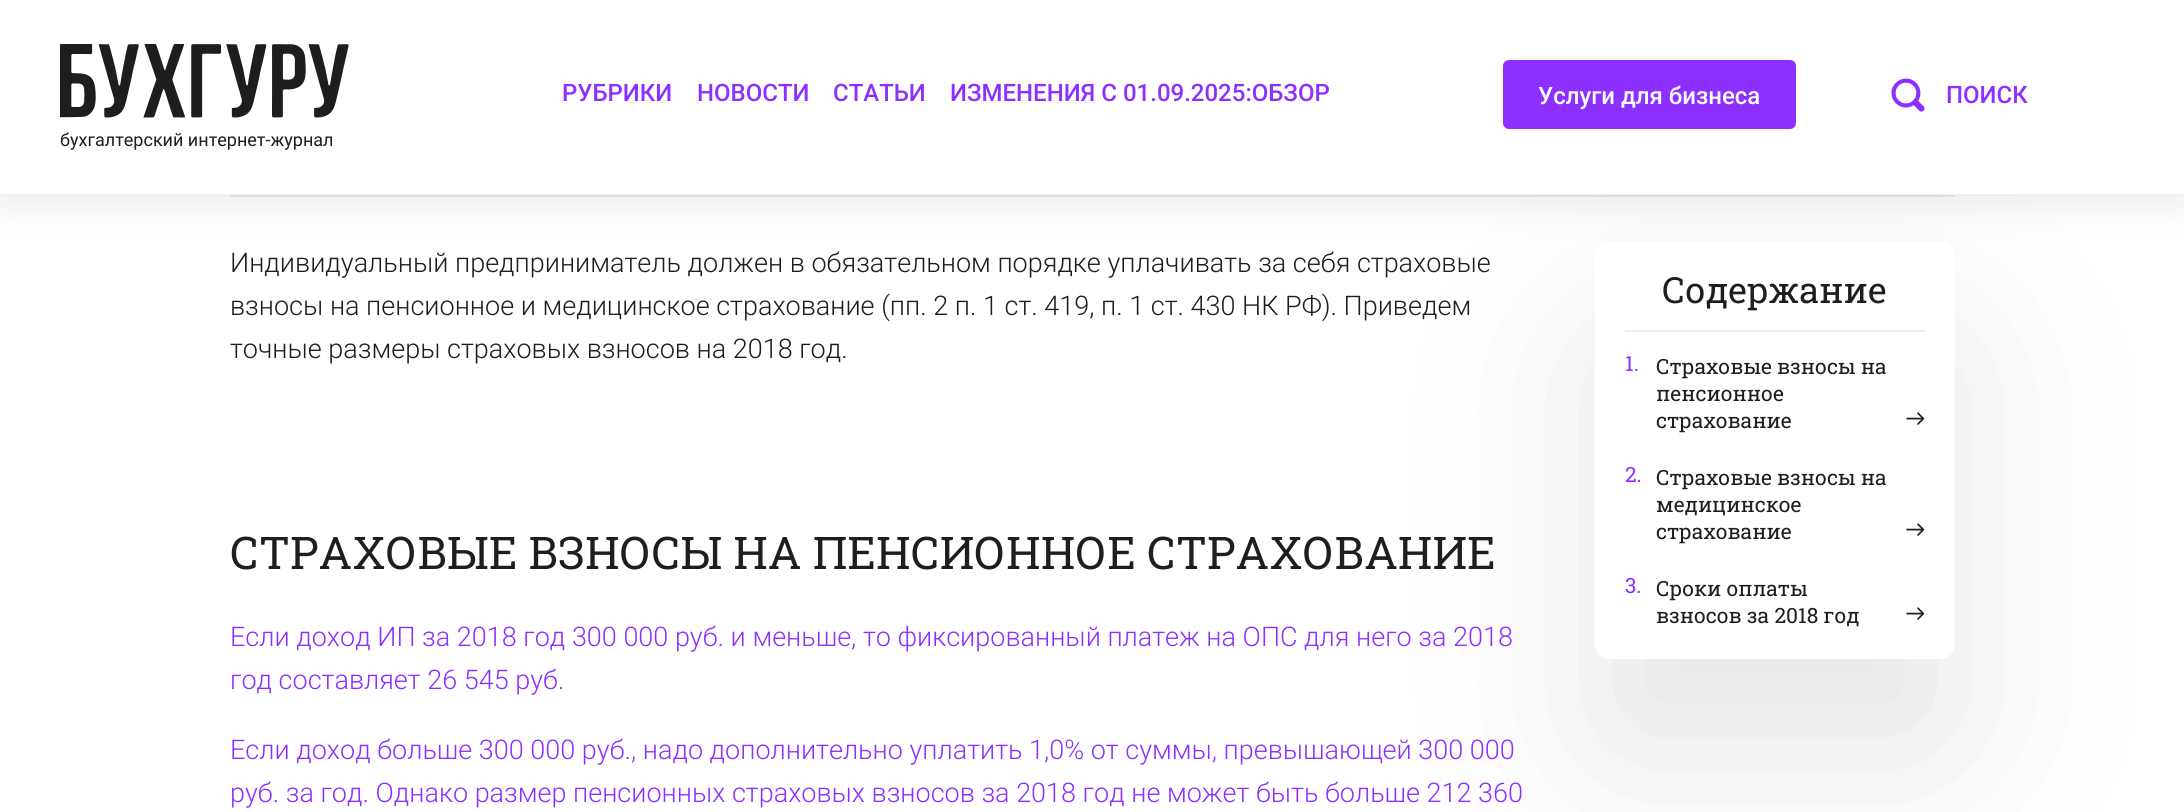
#include <cairo.h>
#include <math.h>
#include <stddef.h>

typedef struct { const char *family; double size; int italic, bold; unsigned color; } style_t;
static cairo_t *ctx;

static void ink(unsigned color) {
    cairo_set_source_rgb(ctx, (color >> 16) / 255.0, (color >> 8 & 255) / 255.0, (color & 255) / 255.0);
}

static void write(double x, double y, const char *s, const style_t *st) {
    cairo_select_font_face(ctx, st->family, st->italic ? CAIRO_FONT_SLANT_ITALIC : CAIRO_FONT_SLANT_NORMAL,
        st->bold ? CAIRO_FONT_WEIGHT_BOLD : CAIRO_FONT_WEIGHT_NORMAL);
    cairo_set_font_size(ctx, st->size);
    ink(st->color);
    cairo_move_to(ctx, x, y);
    cairo_show_text(ctx, s);
}

static void block(double x, double y, double w, double h, unsigned color) {
    ink(color);
    cairo_rectangle(ctx, x, y, w, h);
    cairo_fill(ctx);
}

static void round_path(double x, double y, double w, double h, double r) {
    cairo_new_sub_path(ctx);
    cairo_arc(ctx, x + w - r, y + h - r, r, 0, M_PI / 2);
    cairo_arc(ctx, x + r, y + h - r, r, M_PI / 2, M_PI);
    cairo_arc(ctx, x + r, y + r, r, M_PI, 1.5 * M_PI);
    cairo_arc(ctx, x + w - r, y + r, r, 1.5 * M_PI, 2 * M_PI);
    cairo_close_path(ctx);
}

static void blur_box(double x, double y, double w, double h, double r, double blur, double alpha) {
    cairo_push_group_with_content(ctx, CAIRO_CONTENT_ALPHA);
    cairo_set_operator(ctx, CAIRO_OPERATOR_SOURCE);
    for (int i = 15; i >= -15 && fmin(w, h) + blur * i / 3 > 0; i -= 2) {
        double e = blur * i / 6;
        cairo_set_source_rgba(ctx, 0, 0, 0, alpha * erfc((i - 1) / 8.5) / 2);
        round_path(x - e, y - e, w + 2 * e, h + 2 * e, fmax(0, fmin(r + e + blur * .6, fmin(w, h) / 2 + e)));
        cairo_fill(ctx);
    }
    cairo_pattern_t *soft = cairo_pop_group(ctx);
    cairo_mask(ctx, soft);
    cairo_pattern_destroy(soft);
}

static void paste(const char *path, double x, double y, double w, double h) {
    cairo_surface_t *image = cairo_image_surface_create_from_png(path);
    cairo_save(ctx);
    cairo_set_source_surface(ctx, image, x, y);
    cairo_rectangle(ctx, x, y, w, h);
    cairo_fill(ctx);
    cairo_restore(ctx);
    cairo_surface_destroy(image);
}

static const style_t s1 = {"Roboto Medium", 24, 0, 0, 0x8d30ff};
static const style_t s2 = {"Roboto Medium", 24, 0, 0, 0xffffff};
static const style_t s3 = {"Roboto", 18, 0, 0, 0x1e1e1e};
static const style_t s4 = {"Roboto Light", 27, 0, 0, 0x1e1e1e};
static const style_t s5 = {"Roboto Slab", 45, 0, 0, 0x1e1e1e};
static const style_t s6 = {"Roboto Light", 27, 0, 0, 0x8d30ff};
static const style_t s7 = {"Roboto Slab", 36, 0, 0, 0x1e1e1e};
static const style_t s8 = {"Roboto Slab", 21, 0, 0, 0x8d30ff};
static const style_t s9 = {"Roboto Slab", 21, 0, 0, 0x1e1e1e};

int main(void) {
    cairo_surface_t *surface = cairo_image_surface_create(CAIRO_FORMAT_RGB24, 2184, 812);
    ctx = cairo_create(surface);
    cairo_font_options_t *options = cairo_font_options_create();
    cairo_font_options_set_hint_metrics(options, CAIRO_HINT_METRICS_OFF);
    cairo_font_options_set_hint_style(options, CAIRO_HINT_STYLE_NONE);
    cairo_set_font_options(ctx, options);
    cairo_set_miter_limit(ctx, 4);
    ink(0xffffff);
    cairo_paint(ctx);
    block(230, 195, 1725, 2, 0xededed);
    ink(0x000000);
    blur_box(0, 6, 2184, 194, 0, 22.5, 0.1);
    cairo_save(ctx);
    cairo_set_fill_rule(ctx, CAIRO_FILL_RULE_EVEN_ODD);
    cairo_new_path(ctx);
    cairo_move_to(ctx, 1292, 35);
    cairo_line_to(ctx, 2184, 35);
    cairo_line_to(ctx, 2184, 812);
    cairo_line_to(ctx, 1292, 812);
    cairo_close_path(ctx);
    cairo_move_to(ctx, 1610, 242);
    cairo_line_to(ctx, 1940, 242);
    cairo_curve_to(ctx, 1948.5, 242, 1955, 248.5, 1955, 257);
    cairo_line_to(ctx, 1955, 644);
    cairo_curve_to(ctx, 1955, 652.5, 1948.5, 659, 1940, 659);
    cairo_line_to(ctx, 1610, 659);
    cairo_curve_to(ctx, 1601.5, 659, 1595, 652.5, 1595, 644);
    cairo_line_to(ctx, 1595, 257);
    cairo_curve_to(ctx, 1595, 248.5, 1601.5, 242, 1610, 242);
    cairo_close_path(ctx);
    cairo_clip(ctx);
    blur_box(1595, 338, 360, 417, 15, 100.5, 0.1);
    cairo_restore(ctx);
    block(0, 0, 2184, 194, 0xffffff);
    write(562, 101, "РУБРИКИ", &s1);
    write(697, 101, "НОВОСТИ", &s1);
    write(833, 101, "СТАТЬИ", &s1);
    write(950, 101, "ИЗМЕНЕНИЯ С 01.09.2025:ОБЗОР", &s1);
    round_path(1503, 60, 293, 69, 6);
    cairo_fill(ctx);
    write(1538, 104, "Услуги для бизнеса", &s2);
    paste("pic1.png", 1891, 78, 34, 34);
    write(1946, 103, "ПОИСК", &s1);
    paste("pic2.png", 60, 44, 289, 74);
    write(60, 146, "бухгалтерский интернет-журнал", &s3);
    write(230, 272, "Индивидуальный предприниматель должен в обязательном порядке уплачивать за себя страховые", &s4);
    write(230, 315, "взносы на пенсионное и медицинское страхование (пп. 2 п. 1 ст. 419, п. 1 ст. 430 НК РФ). Приведем", &s4);
    write(230, 358, "точные размеры страховых взносов на 2018 год.", &s4);
    write(230, 569, "СТРАХОВЫЕ ВЗНОСЫ НА ПЕНСИОННОЕ СТРАХОВАНИЕ", &s5);
    write(230, 646, "Если доход ИП за 2018 год 300 000 руб. и меньше, то фиксированный платеж на ОПС для него за 2018", &s6);
    write(230, 689, "год составляет 26 545 руб.", &s6);
    write(230, 759, "Если доход больше 300 000 руб., надо дополнительно уплатить 1,0% от суммы, превышающей 300 000", &s6);
    write(230, 802, "руб. за год. Однако размер пенсионных страховых взносов за 2018 год не может быть больше 212 360", &s6);
    write(1662, 303, "Содержание", &s7);
    block(1625, 330, 300, 2, 0xededed);
    block(1954, 338, 1, 222, 0xffffff);
    write(1625, 371, "1.", &s8);
    write(1656, 374, "Страховые взносы на", &s9);
    write(1656, 401, "пенсионное", &s9);
    write(1656, 428, "страхование", &s9);
    paste("pic3.png", 1906, 412, 19, 13);
    write(1625, 482, "2.", &s8);
    write(1656, 485, "Страховые взносы на", &s9);
    write(1656, 512, "медицинское", &s9);
    write(1656, 539, "страхование", &s9);
    paste("pic3.png", 1906, 523, 19, 13);
    ink(0xffffff);
    cairo_new_path(ctx);
    cairo_move_to(ctx, 1595, 560);
    cairo_line_to(ctx, 1955, 560);
    cairo_line_to(ctx, 1955, 644);
    cairo_curve_to(ctx, 1955, 652.5, 1948.5, 659, 1940, 659);
    cairo_line_to(ctx, 1610, 659);
    cairo_curve_to(ctx, 1601.5, 659, 1595, 652.5, 1595, 644);
    cairo_close_path(ctx);
    cairo_fill(ctx);
    write(1625, 593, "3.", &s8);
    write(1656, 596, "Сроки оплаты", &s9);
    write(1656, 623, "взносов за 2018 год", &s9);
    paste("pic3.png", 1906, 607, 19, 13);
    cairo_surface_write_to_png(surface, "screenshot.png");
    cairo_font_options_destroy(options);
    cairo_destroy(ctx);
    cairo_surface_destroy(surface);
    return 0;
}
